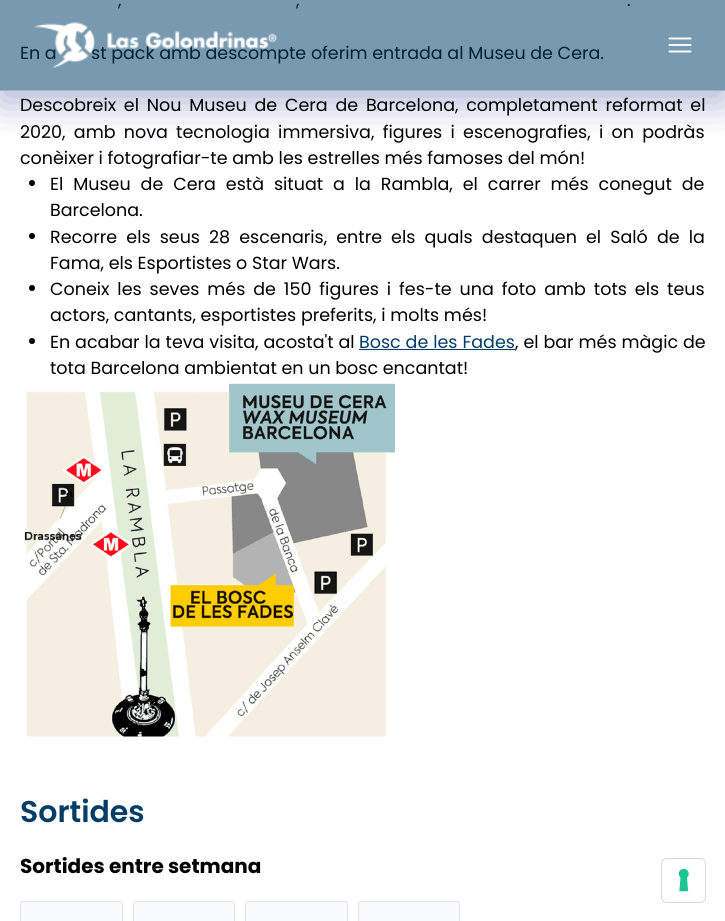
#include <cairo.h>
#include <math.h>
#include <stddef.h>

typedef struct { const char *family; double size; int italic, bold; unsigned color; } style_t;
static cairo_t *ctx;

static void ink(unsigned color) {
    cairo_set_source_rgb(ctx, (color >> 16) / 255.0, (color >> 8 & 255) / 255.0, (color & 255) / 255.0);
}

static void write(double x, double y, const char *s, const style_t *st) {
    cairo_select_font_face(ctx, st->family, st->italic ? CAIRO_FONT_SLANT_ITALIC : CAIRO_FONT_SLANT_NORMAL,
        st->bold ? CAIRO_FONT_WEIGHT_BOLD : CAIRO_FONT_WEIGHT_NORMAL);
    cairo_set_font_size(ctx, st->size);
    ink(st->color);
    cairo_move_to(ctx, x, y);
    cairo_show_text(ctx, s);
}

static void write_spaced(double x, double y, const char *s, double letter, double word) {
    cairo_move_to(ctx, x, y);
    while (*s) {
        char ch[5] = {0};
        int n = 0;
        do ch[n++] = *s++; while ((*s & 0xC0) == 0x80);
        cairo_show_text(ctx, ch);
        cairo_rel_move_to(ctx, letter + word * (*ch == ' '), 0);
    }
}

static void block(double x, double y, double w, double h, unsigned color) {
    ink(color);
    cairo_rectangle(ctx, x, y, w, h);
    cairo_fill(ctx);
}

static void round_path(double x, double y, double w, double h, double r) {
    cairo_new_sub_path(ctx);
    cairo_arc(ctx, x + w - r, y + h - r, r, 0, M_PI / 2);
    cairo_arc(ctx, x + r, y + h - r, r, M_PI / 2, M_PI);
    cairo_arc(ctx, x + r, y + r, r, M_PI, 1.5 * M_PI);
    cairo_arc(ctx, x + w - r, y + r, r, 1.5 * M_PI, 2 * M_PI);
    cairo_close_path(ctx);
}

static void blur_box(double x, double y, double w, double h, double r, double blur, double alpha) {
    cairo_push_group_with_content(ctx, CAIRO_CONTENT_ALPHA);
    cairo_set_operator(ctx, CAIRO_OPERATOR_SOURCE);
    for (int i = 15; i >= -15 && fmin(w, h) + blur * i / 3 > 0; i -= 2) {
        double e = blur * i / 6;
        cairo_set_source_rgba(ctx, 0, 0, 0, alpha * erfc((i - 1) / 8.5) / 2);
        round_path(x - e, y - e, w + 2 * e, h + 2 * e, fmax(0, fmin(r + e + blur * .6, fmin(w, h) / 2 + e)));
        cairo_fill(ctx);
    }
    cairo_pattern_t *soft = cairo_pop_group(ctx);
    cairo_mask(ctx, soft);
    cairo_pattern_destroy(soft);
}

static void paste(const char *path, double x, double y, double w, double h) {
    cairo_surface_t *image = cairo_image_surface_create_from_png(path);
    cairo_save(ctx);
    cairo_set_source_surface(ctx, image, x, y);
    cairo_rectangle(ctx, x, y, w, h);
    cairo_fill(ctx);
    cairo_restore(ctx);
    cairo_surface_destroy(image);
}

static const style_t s1 = {"Poppins", 17.5, 0, 0, 0x012138};
static const style_t s2 = {"Poppins", 17.5, 0, 0, 0x000000};
static const style_t s3 = {"Poppins SemiBold", 30, 0, 0, 0x023d67};
static const style_t s4 = {"Poppins", 20, 0, 1, 0x000000};

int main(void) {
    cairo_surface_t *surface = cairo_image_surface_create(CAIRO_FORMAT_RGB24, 725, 921);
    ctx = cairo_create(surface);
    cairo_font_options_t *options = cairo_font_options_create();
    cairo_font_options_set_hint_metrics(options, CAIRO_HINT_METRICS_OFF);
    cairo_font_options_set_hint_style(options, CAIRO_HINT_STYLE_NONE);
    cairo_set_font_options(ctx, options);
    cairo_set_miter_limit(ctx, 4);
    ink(0xffffff);
    cairo_paint(ctx);
    block(0, 0, 725, 90, 0x7999b0);
    cairo_save(ctx);
    cairo_rectangle(ctx, 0, 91, 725, 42);
    cairo_clip(ctx);
    ink(0x1f2687);
    blur_box(0, 10, 725, 91, 0, 20, 0.37);
    cairo_restore(ctx);
    block(0, 90, 725, 1, 0xa0b7c7);
    write(20, 59, "En a", &s1);
    write(91, 59, "st pack amb descompte oferim entrada al Museu de Cera.", &s1);
    paste("pic1.png", 34, 22, 243, 46);
    cairo_new_path(ctx);
    cairo_move_to(ctx, 669.5, 38.5);
    cairo_line_to(ctx, 690.5, 38.5);
    cairo_move_to(ctx, 669.5, 45);
    cairo_line_to(ctx, 690.5, 45);
    cairo_move_to(ctx, 669.5, 51.5);
    cairo_line_to(ctx, 690.5, 51.5);
    ink(0xffffff);
    cairo_set_line_width(ctx, 1.9);
    cairo_set_line_cap(ctx, CAIRO_LINE_CAP_ROUND);
    cairo_set_line_join(ctx, CAIRO_LINE_JOIN_ROUND);
    cairo_stroke(ctx);
    write(118, 6, ",", &s1);
    write(296, 6, ",", &s1);
    write(627, 6, ".", &s1);
    ink(0x000000);
    write_spaced(20, 111, "Descobreix el Nou Museu de Cera de Barcelona, completament reformat el", 0, 3.1);
    write_spaced(20, 138, "2020, amb nova tecnologia immersiva, figures i escenografies, i on podràs", 0, 3.6);
    write(20, 164, "conèixer i fotografiar-te amb les estrelles més famoses del món!", &s2);
    cairo_new_path(ctx);
    cairo_arc(ctx, 32, 183, 3, 0, 2 * M_PI);
    cairo_fill(ctx);
    write_spaced(50, 190, "El Museu de Cera està situat a la Rambla, el carrer més conegut de", 0, 5.25);
    write(50, 216, "Barcelona.", &s2);
    cairo_new_path(ctx);
    cairo_arc(ctx, 32, 236, 3, 0, 2 * M_PI);
    cairo_fill(ctx);
    write_spaced(50, 243, "Recorre els seus 28 escenaris, entre els quals destaquen el Saló de la", 0, 4.4);
    write(50, 269, "Fama, els Esportistes o Star Wars.", &s2);
    cairo_new_path(ctx);
    cairo_arc(ctx, 32, 288, 3, 0, 2 * M_PI);
    cairo_fill(ctx);
    write_spaced(50, 295, "Coneix les seves més de 150 figures i fes-te una foto amb tots els teus", 0, 3.25);
    write(50, 321, "actors, cantants, esportistes preferits, i molts més!", &s2);
    cairo_new_path(ctx);
    cairo_arc(ctx, 32, 341, 3, 0, 2 * M_PI);
    cairo_fill(ctx);
    write_spaced(50, 348, "En acabar la teva visita, acosta't al", 0, 0.25);
    ink(0x023d67);
    write_spaced(359, 348, "Bosc de les Fades", 0, 0.25);
    block(359, 349, 156, 1, 0x023d67);
    ink(0x000000);
    write_spaced(515, 348, ", el bar més màgic de", 0, 0.25);
    write(50, 374, "tota Barcelona ambientat en un bosc encantat!", &s2);
    paste("pic2.png", 24, 383, 371, 354);
    write(20, 822, "Sortides", &s3);
    write(20, 873, "Sortides entre setmana", &s4);
    ink(0xf9fafb);
    round_path(20.5, 901.5, 102, 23, 2);
    cairo_fill_preserve(ctx);
    ink(0xe5e7eb);
    cairo_set_line_width(ctx, 1);
    cairo_set_line_cap(ctx, CAIRO_LINE_CAP_BUTT);
    cairo_set_line_join(ctx, CAIRO_LINE_JOIN_MITER);
    cairo_stroke(ctx);
    ink(0xf9fafb);
    round_path(133.5, 901.5, 101, 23, 2);
    cairo_fill_preserve(ctx);
    ink(0xe5e7eb);
    cairo_stroke(ctx);
    ink(0xf9fafb);
    round_path(245.5, 901.5, 102, 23, 2);
    cairo_fill_preserve(ctx);
    ink(0xe5e7eb);
    cairo_stroke(ctx);
    ink(0xf9fafb);
    round_path(358.5, 901.5, 101, 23, 2);
    cairo_fill_preserve(ctx);
    ink(0xe5e7eb);
    cairo_stroke(ctx);
    round_path(661.5, 858.5, 44, 44, 5.5);
    ink(0xd9d9d9);
    cairo_stroke(ctx);
    ink(0xffffff);
    round_path(663, 859, 42, 42, 5);
    cairo_fill(ctx);
    paste("pic3.png", 678, 868, 11, 24);
    cairo_surface_write_to_png(surface, "screenshot.png");
    cairo_font_options_destroy(options);
    cairo_destroy(ctx);
    cairo_surface_destroy(surface);
    return 0;
}
